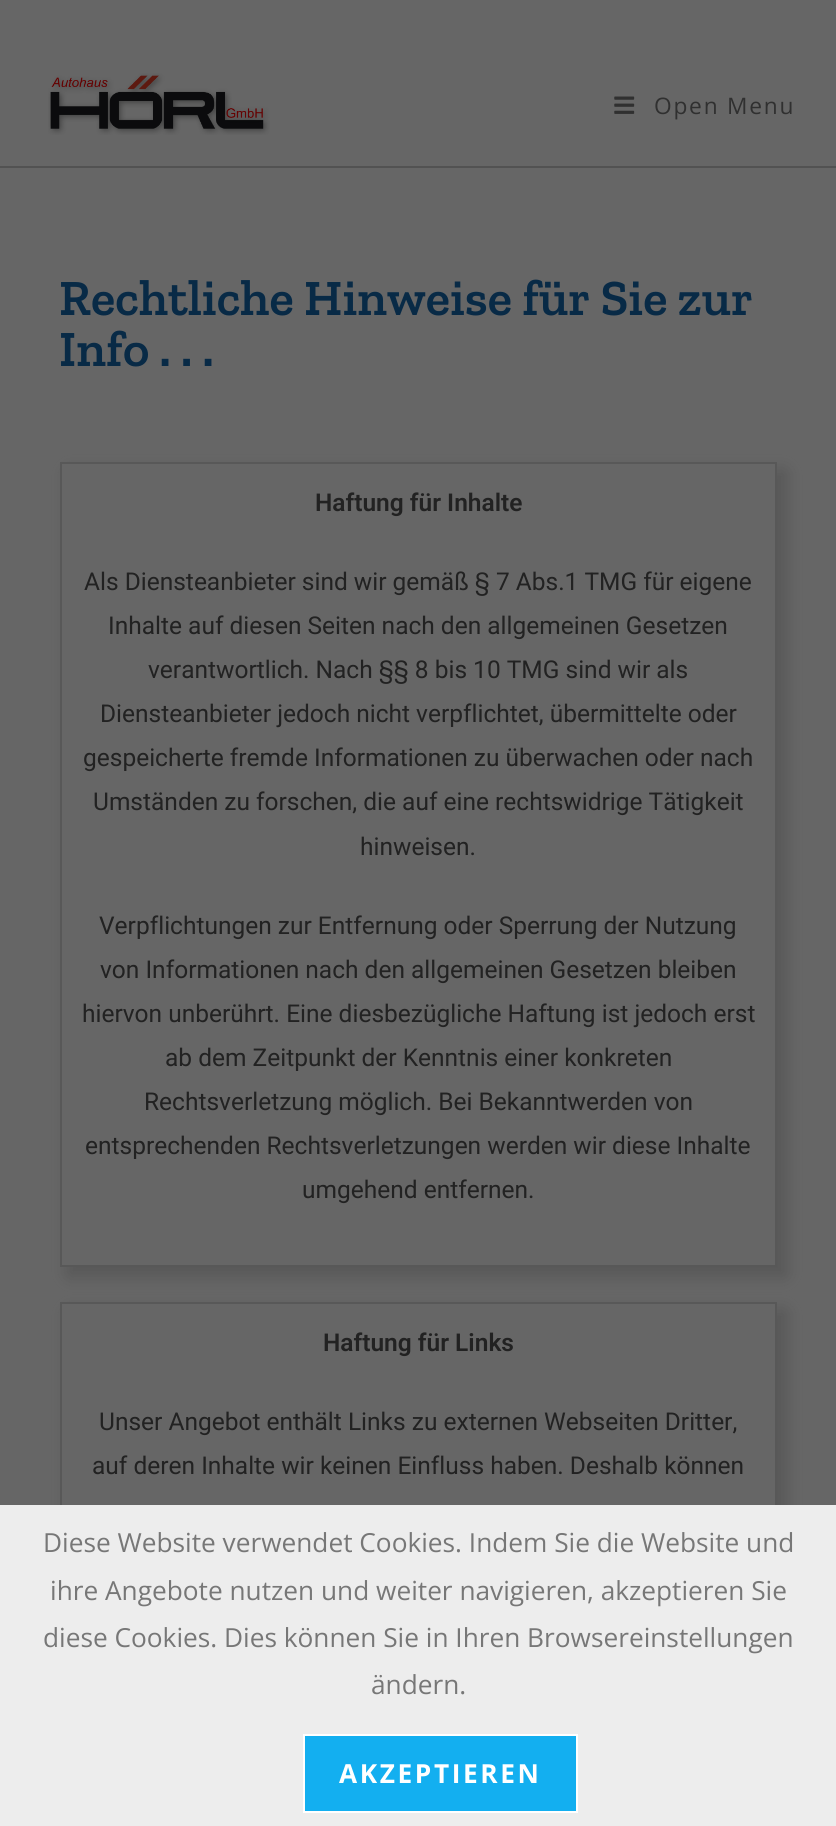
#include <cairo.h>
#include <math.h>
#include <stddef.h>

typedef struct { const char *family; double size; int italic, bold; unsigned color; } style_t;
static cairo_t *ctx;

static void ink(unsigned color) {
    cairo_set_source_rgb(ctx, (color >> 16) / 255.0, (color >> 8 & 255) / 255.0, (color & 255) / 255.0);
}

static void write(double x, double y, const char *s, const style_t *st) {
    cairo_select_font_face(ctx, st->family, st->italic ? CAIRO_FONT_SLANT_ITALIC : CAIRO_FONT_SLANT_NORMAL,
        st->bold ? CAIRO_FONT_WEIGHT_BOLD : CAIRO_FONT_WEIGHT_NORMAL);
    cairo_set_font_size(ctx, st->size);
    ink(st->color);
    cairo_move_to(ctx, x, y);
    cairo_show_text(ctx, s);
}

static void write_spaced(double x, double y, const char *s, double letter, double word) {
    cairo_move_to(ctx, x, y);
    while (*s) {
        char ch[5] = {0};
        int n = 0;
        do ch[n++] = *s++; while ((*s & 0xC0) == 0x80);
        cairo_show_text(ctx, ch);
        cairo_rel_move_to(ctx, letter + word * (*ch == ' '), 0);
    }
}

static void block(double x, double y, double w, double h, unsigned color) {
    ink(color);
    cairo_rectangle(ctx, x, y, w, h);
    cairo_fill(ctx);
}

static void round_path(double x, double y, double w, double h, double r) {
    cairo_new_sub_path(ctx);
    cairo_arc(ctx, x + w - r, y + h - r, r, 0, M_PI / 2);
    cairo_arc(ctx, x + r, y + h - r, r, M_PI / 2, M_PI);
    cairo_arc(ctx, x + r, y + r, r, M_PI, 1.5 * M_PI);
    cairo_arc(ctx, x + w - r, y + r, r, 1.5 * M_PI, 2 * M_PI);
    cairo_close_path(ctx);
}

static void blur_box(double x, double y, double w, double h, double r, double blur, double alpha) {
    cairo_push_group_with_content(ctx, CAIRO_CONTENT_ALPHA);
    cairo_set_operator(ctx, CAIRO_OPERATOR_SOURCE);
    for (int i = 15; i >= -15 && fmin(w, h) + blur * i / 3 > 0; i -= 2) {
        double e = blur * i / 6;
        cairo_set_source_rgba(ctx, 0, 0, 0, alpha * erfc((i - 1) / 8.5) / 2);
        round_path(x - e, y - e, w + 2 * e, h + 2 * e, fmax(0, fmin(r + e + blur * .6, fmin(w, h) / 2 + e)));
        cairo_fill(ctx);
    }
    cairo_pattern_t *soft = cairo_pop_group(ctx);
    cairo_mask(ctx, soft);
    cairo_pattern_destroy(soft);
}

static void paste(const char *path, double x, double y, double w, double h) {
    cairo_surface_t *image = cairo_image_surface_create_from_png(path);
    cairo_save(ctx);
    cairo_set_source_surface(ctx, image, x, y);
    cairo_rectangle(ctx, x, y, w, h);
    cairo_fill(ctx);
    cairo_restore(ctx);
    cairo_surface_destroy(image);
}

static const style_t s1 = {"Zilla Slab SemiBold", 50.75, 0, 0, 0x082a46};
static const style_t s2 = {"Roboto SemiBold", 24.5, 0, 0, 0x222222};
static const style_t s3 = {"Roboto", 24.5, 0, 0, 0x222222};
static const style_t s4 = {"Open Sans", 26.25, 0, 0, 0x777777};

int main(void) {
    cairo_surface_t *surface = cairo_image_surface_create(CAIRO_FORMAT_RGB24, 836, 1826);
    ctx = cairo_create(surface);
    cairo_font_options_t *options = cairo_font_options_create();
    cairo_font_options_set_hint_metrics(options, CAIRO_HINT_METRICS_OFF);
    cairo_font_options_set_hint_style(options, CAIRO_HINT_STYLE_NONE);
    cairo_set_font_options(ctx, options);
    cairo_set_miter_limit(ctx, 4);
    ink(0x666666);
    cairo_paint(ctx);
    block(0, 166, 836, 2, 0x525252);
    paste("pic1.png", 48, 73, 222, 62);
    paste("pic2.png", 614, 96, 21, 18);
    cairo_select_font_face(ctx, "Open Sans", CAIRO_FONT_SLANT_NORMAL, CAIRO_FONT_WEIGHT_NORMAL);
    cairo_set_font_size(ctx, 22.75);
    ink(0x303030);
    write_spaced(654, 114, "Open Menu", 1.75, 0);
    write(59, 315, "Rechtliche Hinweise für Sie zur", &s1);
    write(59, 366, "Info . . .", &s1);
    cairo_save(ctx);
    cairo_set_fill_rule(ctx, CAIRO_FILL_RULE_EVEN_ODD);
    cairo_new_path(ctx);
    cairo_move_to(ctx, 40, 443);
    cairo_line_to(ctx, 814, 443);
    cairo_line_to(ctx, 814, 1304);
    cairo_line_to(ctx, 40, 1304);
    cairo_close_path(ctx);
    cairo_move_to(ctx, 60, 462);
    cairo_line_to(ctx, 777, 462);
    cairo_line_to(ctx, 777, 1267);
    cairo_line_to(ctx, 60, 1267);
    cairo_close_path(ctx);
    cairo_clip(ctx);
    ink(0x474747);
    blur_box(68, 471, 718, 805, 0, 9, 0.5);
    cairo_restore(ctx);
    cairo_rectangle(ctx, 61, 463, 715, 803);
    ink(0x585858);
    cairo_stroke(ctx);
    write(315, 511, "Haftung für Inhalte", &s2);
    write(84, 590, "Als Diensteanbieter sind wir gemäß § 7 Abs.1 TMG für eigene", &s3);
    write(108, 634, "Inhalte auf diesen Seiten nach den allgemeinen Gesetzen", &s3);
    write(148, 678, "verantwortlich. Nach §§ 8 bis 10 TMG sind wir als", &s3);
    write(100, 722, "Diensteanbieter jedoch nicht verpflichtet, übermittelte oder", &s3);
    write(83, 766, "gespeicherte fremde Informationen zu überwachen oder nach", &s3);
    write(93, 810, "Umständen zu forschen, die auf eine rechtswidrige Tätigkeit", &s3);
    write(360, 855, "hinweisen.", &s3);
    write(99, 934, "Verpflichtungen zur Entfernung oder Sperrung der Nutzung", &s3);
    write(100, 978, "von Informationen nach den allgemeinen Gesetzen bleiben", &s3);
    write(82, 1022, "hiervon unberührt. Eine diesbezügliche Haftung ist jedoch erst", &s3);
    write(165, 1066, "ab dem Zeitpunkt der Kenntnis einer konkreten", &s3);
    write(144, 1110, "Rechtsverletzung möglich. Bei Bekanntwerden von", &s3);
    write(85, 1154, "entsprechenden Rechtsverletzungen werden wir diese Inhalte", &s3);
    write(302, 1198, "umgehend entfernen.", &s3);
    cairo_save(ctx);
    cairo_set_fill_rule(ctx, CAIRO_FILL_RULE_EVEN_ODD);
    cairo_new_path(ctx);
    cairo_move_to(ctx, 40, 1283);
    cairo_line_to(ctx, 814, 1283);
    cairo_line_to(ctx, 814, 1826);
    cairo_line_to(ctx, 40, 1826);
    cairo_close_path(ctx);
    cairo_move_to(ctx, 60, 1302);
    cairo_line_to(ctx, 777, 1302);
    cairo_line_to(ctx, 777, 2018);
    cairo_line_to(ctx, 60, 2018);
    cairo_close_path(ctx);
    cairo_clip(ctx);
    ink(0x474747);
    blur_box(68, 1311, 718, 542, 0, 9, 0.5);
    cairo_restore(ctx);
    cairo_rectangle(ctx, 61, 1303, 715, 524);
    ink(0x585858);
    cairo_stroke(ctx);
    write(323, 1351, "Haftung für Links", &s2);
    write(99, 1430, "Unser Angebot enthält Links zu externen Webseiten Dritter,", &s3);
    write(92, 1474, "auf deren Inhalte wir keinen Einfluss haben. Deshalb können", &s3);
    block(0, 1505, 836, 321, 0xededed);
    write(43, 1552, "Diese Website verwendet Cookies. Indem Sie die Website und", &s4);
    write(50, 1600, "ihre Angebote nutzen und weiter navigieren, akzeptieren Sie", &s4);
    write(43, 1647, "diese Cookies. Dies können Sie in Ihren Browsereinstellungen", &s4);
    write(371, 1694, "ändern.", &s4);
    ink(0x13aff0);
    cairo_rectangle(ctx, 304, 1735, 273, 77);
    cairo_fill_preserve(ctx);
    ink(0xffffff);
    cairo_stroke(ctx);
    cairo_select_font_face(ctx, "Open Sans", CAIRO_FONT_SLANT_NORMAL, CAIRO_FONT_WEIGHT_BOLD);
    write_spaced(339, 1783, "AKZEPTIEREN", 2.6, 0);
    cairo_surface_write_to_png(surface, "screenshot.png");
    cairo_font_options_destroy(options);
    cairo_destroy(ctx);
    cairo_surface_destroy(surface);
    return 0;
}
